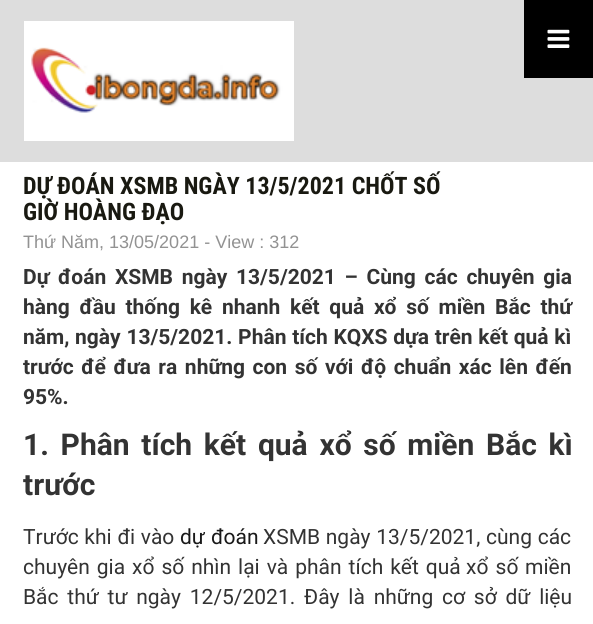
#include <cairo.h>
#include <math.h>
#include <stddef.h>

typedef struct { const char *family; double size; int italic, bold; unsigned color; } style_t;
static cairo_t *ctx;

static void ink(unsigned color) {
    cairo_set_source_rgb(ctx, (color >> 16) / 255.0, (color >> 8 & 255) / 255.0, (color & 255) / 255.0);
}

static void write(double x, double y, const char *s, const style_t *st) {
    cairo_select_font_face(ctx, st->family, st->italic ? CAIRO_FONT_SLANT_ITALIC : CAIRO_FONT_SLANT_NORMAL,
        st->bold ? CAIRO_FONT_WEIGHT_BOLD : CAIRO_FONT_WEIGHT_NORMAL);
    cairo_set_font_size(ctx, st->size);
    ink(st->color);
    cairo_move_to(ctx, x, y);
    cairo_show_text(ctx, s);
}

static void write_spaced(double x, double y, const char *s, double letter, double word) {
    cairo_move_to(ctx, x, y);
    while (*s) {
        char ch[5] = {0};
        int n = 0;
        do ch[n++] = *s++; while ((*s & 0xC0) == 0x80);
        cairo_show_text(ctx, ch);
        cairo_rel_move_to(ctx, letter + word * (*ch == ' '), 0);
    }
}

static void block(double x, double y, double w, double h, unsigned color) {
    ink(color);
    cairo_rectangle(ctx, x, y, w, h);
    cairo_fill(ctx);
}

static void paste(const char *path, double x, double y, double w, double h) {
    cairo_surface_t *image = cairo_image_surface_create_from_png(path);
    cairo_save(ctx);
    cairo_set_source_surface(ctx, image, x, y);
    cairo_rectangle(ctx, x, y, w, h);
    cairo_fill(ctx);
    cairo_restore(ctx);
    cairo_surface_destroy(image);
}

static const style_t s1 = {"Roboto Condensed", 24, 0, 1, 0x191911};
static const style_t s2 = {"Liberation Sans", 18, 0, 0, 0x929292};
static const style_t s3 = {"Roboto", 21, 0, 1, 0x333333};
static const style_t s4 = {"Roboto", 30, 0, 1, 0x333333};
static const style_t s5 = {"Roboto", 21, 0, 0, 0x333333};

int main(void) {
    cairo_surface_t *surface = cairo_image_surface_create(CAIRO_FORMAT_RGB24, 593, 624);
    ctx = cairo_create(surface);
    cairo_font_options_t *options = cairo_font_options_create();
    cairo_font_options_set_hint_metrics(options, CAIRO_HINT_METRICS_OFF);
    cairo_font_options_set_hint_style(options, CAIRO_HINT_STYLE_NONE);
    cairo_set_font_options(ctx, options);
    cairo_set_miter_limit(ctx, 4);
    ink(0xffffff);
    cairo_paint(ctx);
    block(0, 0, 593, 162, 0xdddddd);
    paste("pic1.png", 24, 21, 270, 120);
    block(524, 0, 69, 78, 0x000000);
    paste("pic2.png", 547, 29, 23, 19);
    write(23, 194, "DỰ ĐOÁN XSMB NGÀY 13/5/2021 CHỐT SỐ", &s1);
    write(23, 220, "GIỜ HOÀNG ĐẠO", &s1);
    write(23, 248, "Thứ Năm, 13/05/2021 - View : 312", &s2);
    cairo_select_font_face(ctx, "Roboto", CAIRO_FONT_SLANT_NORMAL, CAIRO_FONT_WEIGHT_BOLD);
    cairo_set_font_size(ctx, 21);
    ink(0x333333);
    write_spaced(23, 284, "Dự đoán XSMB ngày 13/5/2021 – Cùng các chuyên gia", 0, 3.5);
    write_spaced(23, 314, "hàng đầu thống kê nhanh kết quả xổ số miền Bắc thứ", 0, 4.5);
    write_spaced(23, 344, "năm, ngày 13/5/2021. Phân tích KQXS dựa trên kết quả kì", 0, 0.5);
    write_spaced(23, 374, "trước để đưa ra những con số với độ chuẩn xác lên đến", 0, 2.4);
    write(23, 404, "95%.", &s3);
    cairo_set_font_size(ctx, 30);
    write_spaced(23, 455, "1. Phân tích kết quả xổ số miền Bắc kì", 0, 4.25);
    write(23, 495, "trước", &s4);
    cairo_select_font_face(ctx, "Roboto", CAIRO_FONT_SLANT_NORMAL, CAIRO_FONT_WEIGHT_NORMAL);
    cairo_set_font_size(ctx, 21);
    write_spaced(23, 544, "Trước khi đi vào", 0, 0.5);
    ink(0x191919);
    write_spaced(180, 544, "dự đoán", 0, 1);
    ink(0x333333);
    write_spaced(263, 544, "XSMB ngày 13/5/2021, cùng các", 0, 0.5);
    write_spaced(23, 574, "chuyên gia xổ số nhìn lại và phân tích kết quả", 0, 1.75);
    write_spaced(466, 574, "xổ số", 0, 2);
    write(525, 574, "miền", &s5);
    write_spaced(23, 604, "Bắc thứ tư ngày 12/5/2021. Đây là những cơ sở dữ liệu", 0, 3.6);
    cairo_surface_write_to_png(surface, "screenshot.png");
    cairo_font_options_destroy(options);
    cairo_destroy(ctx);
    cairo_surface_destroy(surface);
    return 0;
}
